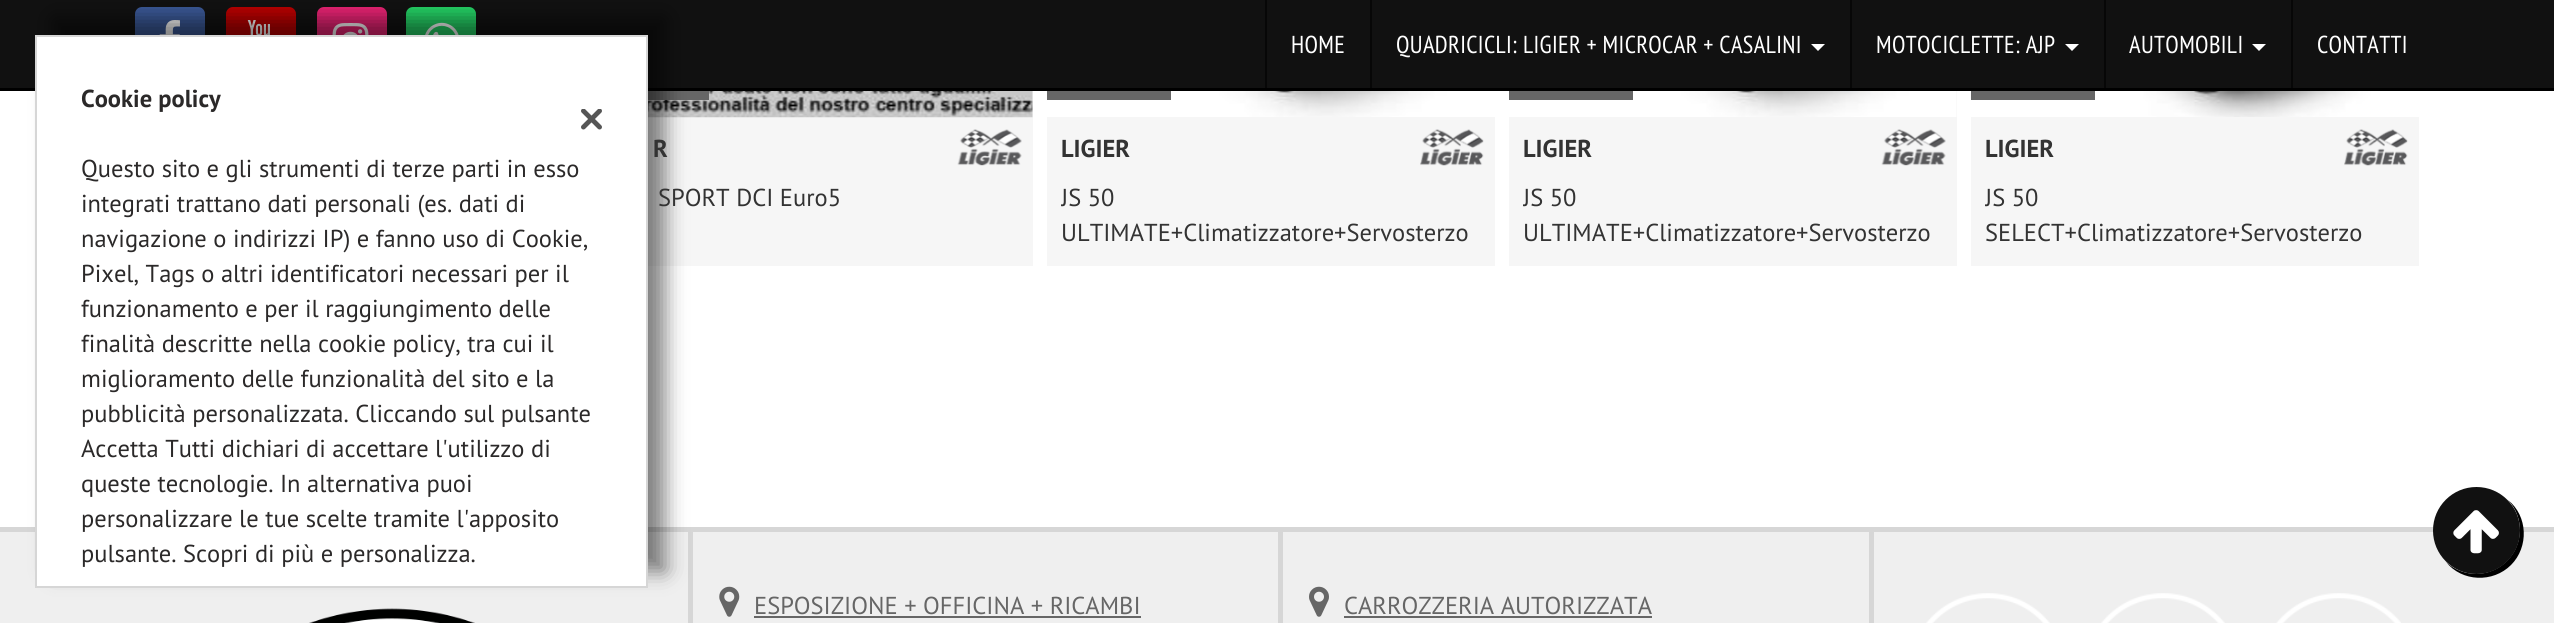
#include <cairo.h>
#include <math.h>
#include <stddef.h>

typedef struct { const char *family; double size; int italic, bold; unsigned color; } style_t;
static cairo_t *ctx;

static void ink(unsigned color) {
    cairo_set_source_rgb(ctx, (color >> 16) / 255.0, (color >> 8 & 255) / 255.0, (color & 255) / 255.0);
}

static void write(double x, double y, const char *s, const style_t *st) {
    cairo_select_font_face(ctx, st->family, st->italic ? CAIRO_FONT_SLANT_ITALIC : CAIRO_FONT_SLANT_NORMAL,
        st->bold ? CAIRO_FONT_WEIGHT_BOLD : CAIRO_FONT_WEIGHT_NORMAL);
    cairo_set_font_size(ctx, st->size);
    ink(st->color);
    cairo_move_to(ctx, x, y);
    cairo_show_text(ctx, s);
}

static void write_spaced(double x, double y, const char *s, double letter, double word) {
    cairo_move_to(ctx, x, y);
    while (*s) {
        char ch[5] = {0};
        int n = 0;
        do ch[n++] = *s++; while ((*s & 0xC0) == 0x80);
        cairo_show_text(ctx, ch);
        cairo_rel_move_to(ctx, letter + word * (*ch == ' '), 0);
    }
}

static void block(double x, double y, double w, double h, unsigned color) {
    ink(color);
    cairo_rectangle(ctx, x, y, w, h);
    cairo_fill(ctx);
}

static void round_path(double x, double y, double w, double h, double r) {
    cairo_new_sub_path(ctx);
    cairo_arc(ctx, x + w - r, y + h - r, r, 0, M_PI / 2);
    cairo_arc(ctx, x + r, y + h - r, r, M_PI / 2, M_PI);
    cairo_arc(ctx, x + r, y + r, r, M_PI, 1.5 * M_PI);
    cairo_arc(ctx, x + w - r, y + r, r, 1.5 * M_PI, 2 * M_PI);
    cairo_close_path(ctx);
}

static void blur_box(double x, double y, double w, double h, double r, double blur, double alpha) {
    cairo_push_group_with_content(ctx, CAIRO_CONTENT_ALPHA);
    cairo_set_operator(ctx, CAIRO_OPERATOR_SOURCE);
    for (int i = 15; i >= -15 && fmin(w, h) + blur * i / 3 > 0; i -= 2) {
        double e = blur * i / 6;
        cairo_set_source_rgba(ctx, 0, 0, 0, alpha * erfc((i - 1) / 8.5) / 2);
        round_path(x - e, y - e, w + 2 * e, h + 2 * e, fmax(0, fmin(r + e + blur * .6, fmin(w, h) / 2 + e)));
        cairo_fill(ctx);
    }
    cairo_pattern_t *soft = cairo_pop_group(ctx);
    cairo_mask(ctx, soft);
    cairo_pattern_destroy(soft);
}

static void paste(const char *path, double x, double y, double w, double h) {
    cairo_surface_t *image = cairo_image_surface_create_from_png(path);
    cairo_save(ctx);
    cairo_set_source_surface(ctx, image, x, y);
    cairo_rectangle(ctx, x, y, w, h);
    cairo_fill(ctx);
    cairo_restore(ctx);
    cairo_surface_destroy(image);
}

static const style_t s1 = {"PT Sans", 24.5, 0, 1, 0x2b2929};
static const style_t s2 = {"PT Sans", 24.5, 0, 0, 0x2b2929};
static const style_t s3 = {"PT Sans", 24.5, 0, 1, 0x333333};
static const style_t s4 = {"PT Sans", 24.5, 0, 0, 0x333333};
static const style_t s5 = {"PT Sans", 24.5, 0, 0, 0x666666};

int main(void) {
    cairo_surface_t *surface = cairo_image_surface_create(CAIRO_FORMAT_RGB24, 2554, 623);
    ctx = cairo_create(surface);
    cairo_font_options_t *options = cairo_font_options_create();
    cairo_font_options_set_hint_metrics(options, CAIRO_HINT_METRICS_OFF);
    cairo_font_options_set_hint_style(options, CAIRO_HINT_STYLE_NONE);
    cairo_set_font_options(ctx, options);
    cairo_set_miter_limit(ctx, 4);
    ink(0xffffff);
    cairo_paint(ctx);
    block(0, 88, 2554, 3, 0x000000);
    block(0, 0, 2554, 88, 0x111111);
    ink(0x3b5998);
    round_path(135, 7, 70, 74, 7);
    cairo_fill(ctx);
    paste("pic2.png", 159, 20, 21, 15);
    ink(0xbb0000);
    round_path(226, 7, 70, 74, 7);
    cairo_fill(ctx);
    paste("pic3.png", 247, 20, 23, 15);
    ink(0xea2374);
    round_path(317, 7, 70, 74, 7);
    cairo_fill(ctx);
    paste("pic4.png", 332, 23, 37, 12);
    ink(0x25d366);
    round_path(406, 7, 70, 74, 7);
    cairo_fill(ctx);
    paste("pic5.png", 425, 22, 34, 13);
    block(648, 91, 385, 175, 0xf6f6f6);
    paste("pic6.png", 648, 91, 385, 27);
    block(648, 91, 61, 9, 0x666666);
    block(0, 532, 2554, 91, 0xefefef);
    block(0, 527, 2554, 5, 0xd6d6d6);
    block(688, 532, 5, 91, 0xd6d6d6);
    ink(0x000000);
    blur_box(53, 18, 612, 553, 0, 10.5, 0.5);
    ink(0xffffff);
    cairo_rectangle(ctx, 36, 36, 611, 551);
    cairo_fill_preserve(ctx);
    ink(0xd6d6d6);
    cairo_stroke(ctx);
    write(81, 107, "Cookie policy", &s1);
    write(81, 177, "Questo sito e gli strumenti di terze parti in esso", &s2);
    write(81, 212, "integrati trattano dati personali (es. dati di", &s2);
    write(81, 247, "navigazione o indirizzi IP) e fanno uso di Cookie,", &s2);
    write(81, 282, "Pixel, Tags o altri identificatori necessari per il", &s2);
    write(81, 317, "funzionamento e per il raggiungimento delle", &s2);
    write(81, 352, "finalità descritte nella cookie policy, tra cui il", &s2);
    write(81, 387, "miglioramento delle funzionalità del sito e la", &s2);
    write(81, 422, "pubblicità personalizzata. Cliccando sul pulsante", &s2);
    write(81, 457, "Accetta Tutti dichiari di accettare l'utilizzo di", &s2);
    write(81, 492, "queste tecnologie. In alternativa puoi", &s2);
    write(81, 527, "personalizzare le tue scelte tramite l'apposito", &s2);
    write(81, 562, "pulsante. Scopri di più e personalizza.", &s2);
    paste("pic1.png", 581, 109, 21, 21);
    block(1265, 0, 2, 88, 0x070707);
    cairo_select_font_face(ctx, "PT Sans Narrow", CAIRO_FONT_SLANT_NORMAL, CAIRO_FONT_WEIGHT_NORMAL);
    ink(0xffffff);
    write_spaced(1291, 53, "HOME", 0.35, 0);
    block(1370, 0, 2, 88, 0x070707);
    ink(0xffffff);
    write_spaced(1396, 53, "QUADRICICLI: LIGIER + MICROCAR + CASALINI", 0.35, 0);
    cairo_new_path(ctx);
    cairo_move_to(ctx, 1811, 44);
    cairo_line_to(ctx, 1825, 44);
    cairo_line_to(ctx, 1818, 51);
    cairo_close_path(ctx);
    cairo_fill(ctx);
    block(1850, 0, 2, 88, 0x070707);
    ink(0xffffff);
    write_spaced(1876, 53, "MOTOCICLETTE: AJP", 0.35, 0);
    cairo_new_path(ctx);
    cairo_move_to(ctx, 2065, 44);
    cairo_line_to(ctx, 2079, 44);
    cairo_line_to(ctx, 2072, 51);
    cairo_close_path(ctx);
    cairo_fill(ctx);
    block(2104, 0, 2, 88, 0x070707);
    ink(0xffffff);
    write_spaced(2129, 53, "AUTOMOBILI", 0.35, 0);
    cairo_new_path(ctx);
    cairo_move_to(ctx, 2252, 44);
    cairo_line_to(ctx, 2266, 44);
    cairo_line_to(ctx, 2259, 51);
    cairo_close_path(ctx);
    cairo_fill(ctx);
    block(2291, 0, 2, 88, 0x070707);
    ink(0xffffff);
    write_spaced(2317, 53, "CONTATTI", 0.35, 0);
    write(653, 157, "R", &s3);
    paste("pic7.png", 957, 129, 65, 37);
    write(658, 206, "SPORT DCI Euro5", &s4);
    block(1047, 117, 448, 149, 0xf6f6f6);
    paste("pic8.png", 1047, 91, 448, 26);
    block(1047, 91, 124, 9, 0x666666);
    write(1061, 157, "LIGIER", &s3);
    paste("pic9.png", 1420, 129, 64, 37);
    cairo_save(ctx);
    cairo_rectangle(ctx, 1061, 180, 420, 70);
    cairo_clip(ctx);
    write(1061, 206, "JS 50", &s4);
    cairo_restore(ctx);
    write(1061, 241, "ULTIMATE+Climatizzatore+Servosterzo", &s4);
    block(1509, 91, 448, 175, 0xf6f6f6);
    paste("pic10.png", 1509, 91, 448, 26);
    block(1509, 91, 124, 9, 0x666666);
    write(1523, 157, "LIGIER", &s3);
    paste("pic7.png", 1881, 129, 65, 37);
    cairo_save(ctx);
    cairo_rectangle(ctx, 1523, 180, 420, 70);
    cairo_clip(ctx);
    write(1523, 206, "JS 50", &s4);
    cairo_restore(ctx);
    write(1523, 241, "ULTIMATE+Climatizzatore+Servosterzo", &s4);
    block(1971, 117, 448, 149, 0xf6f6f6);
    paste("pic11.png", 1971, 91, 448, 26);
    block(1971, 91, 124, 9, 0x666666);
    write(1985, 157, "LIGIER", &s3);
    paste("pic12.png", 2344, 129, 64, 37);
    cairo_save(ctx);
    cairo_rectangle(ctx, 1985, 180, 420, 70);
    cairo_clip(ctx);
    write(1985, 206, "JS 50", &s4);
    cairo_restore(ctx);
    write(1985, 241, "SELECT+Climatizzatore+Servosterzo", &s4);
    ink(0x000000);
    cairo_new_path(ctx);
    cairo_move_to(ctx, 2446, 562);
    cairo_curve_to(ctx, 2462, 582, 2493, 583, 2511, 565);
    cairo_curve_to(ctx, 2529, 547, 2528, 516, 2508, 500);
    cairo_curve_to(ctx, 2524, 517, 2524, 544, 2507, 561);
    cairo_curve_to(ctx, 2490, 578, 2463, 578, 2446, 562);
    cairo_close_path(ctx);
    cairo_fill(ctx);
    ink(0x111111);
    cairo_arc(ctx, 2476.5, 530.5, 43.5, 0, 2 * M_PI);
    cairo_fill(ctx);
    paste("pic13.png", 2453, 510, 46, 44);
    paste("pic14.png", 309, 608, 166, 15);
    paste("pic15.png", 719, 586, 21, 31);
    write(754, 614, "ESPOSIZIONE + OFFICINA + RICAMBI", &s5);
    block(754, 616, 387, 2, 0x666666);
    block(1278, 532, 5, 91, 0xd6d6d6);
    paste("pic16.png", 1309, 586, 20, 31);
    write(1344, 614, "CARROZZERIA AUTORIZZATA", &s5);
    block(1344, 616, 308, 2, 0x666666);
    block(1869, 532, 5, 91, 0xd6d6d6);
    paste("pic17.png", 1926, 593, 124, 30);
    paste("pic17.png", 2101, 593, 124, 30);
    paste("pic18.png", 2276, 593, 125, 30);
    cairo_surface_write_to_png(surface, "screenshot.png");
    cairo_font_options_destroy(options);
    cairo_destroy(ctx);
    cairo_surface_destroy(surface);
    return 0;
}
